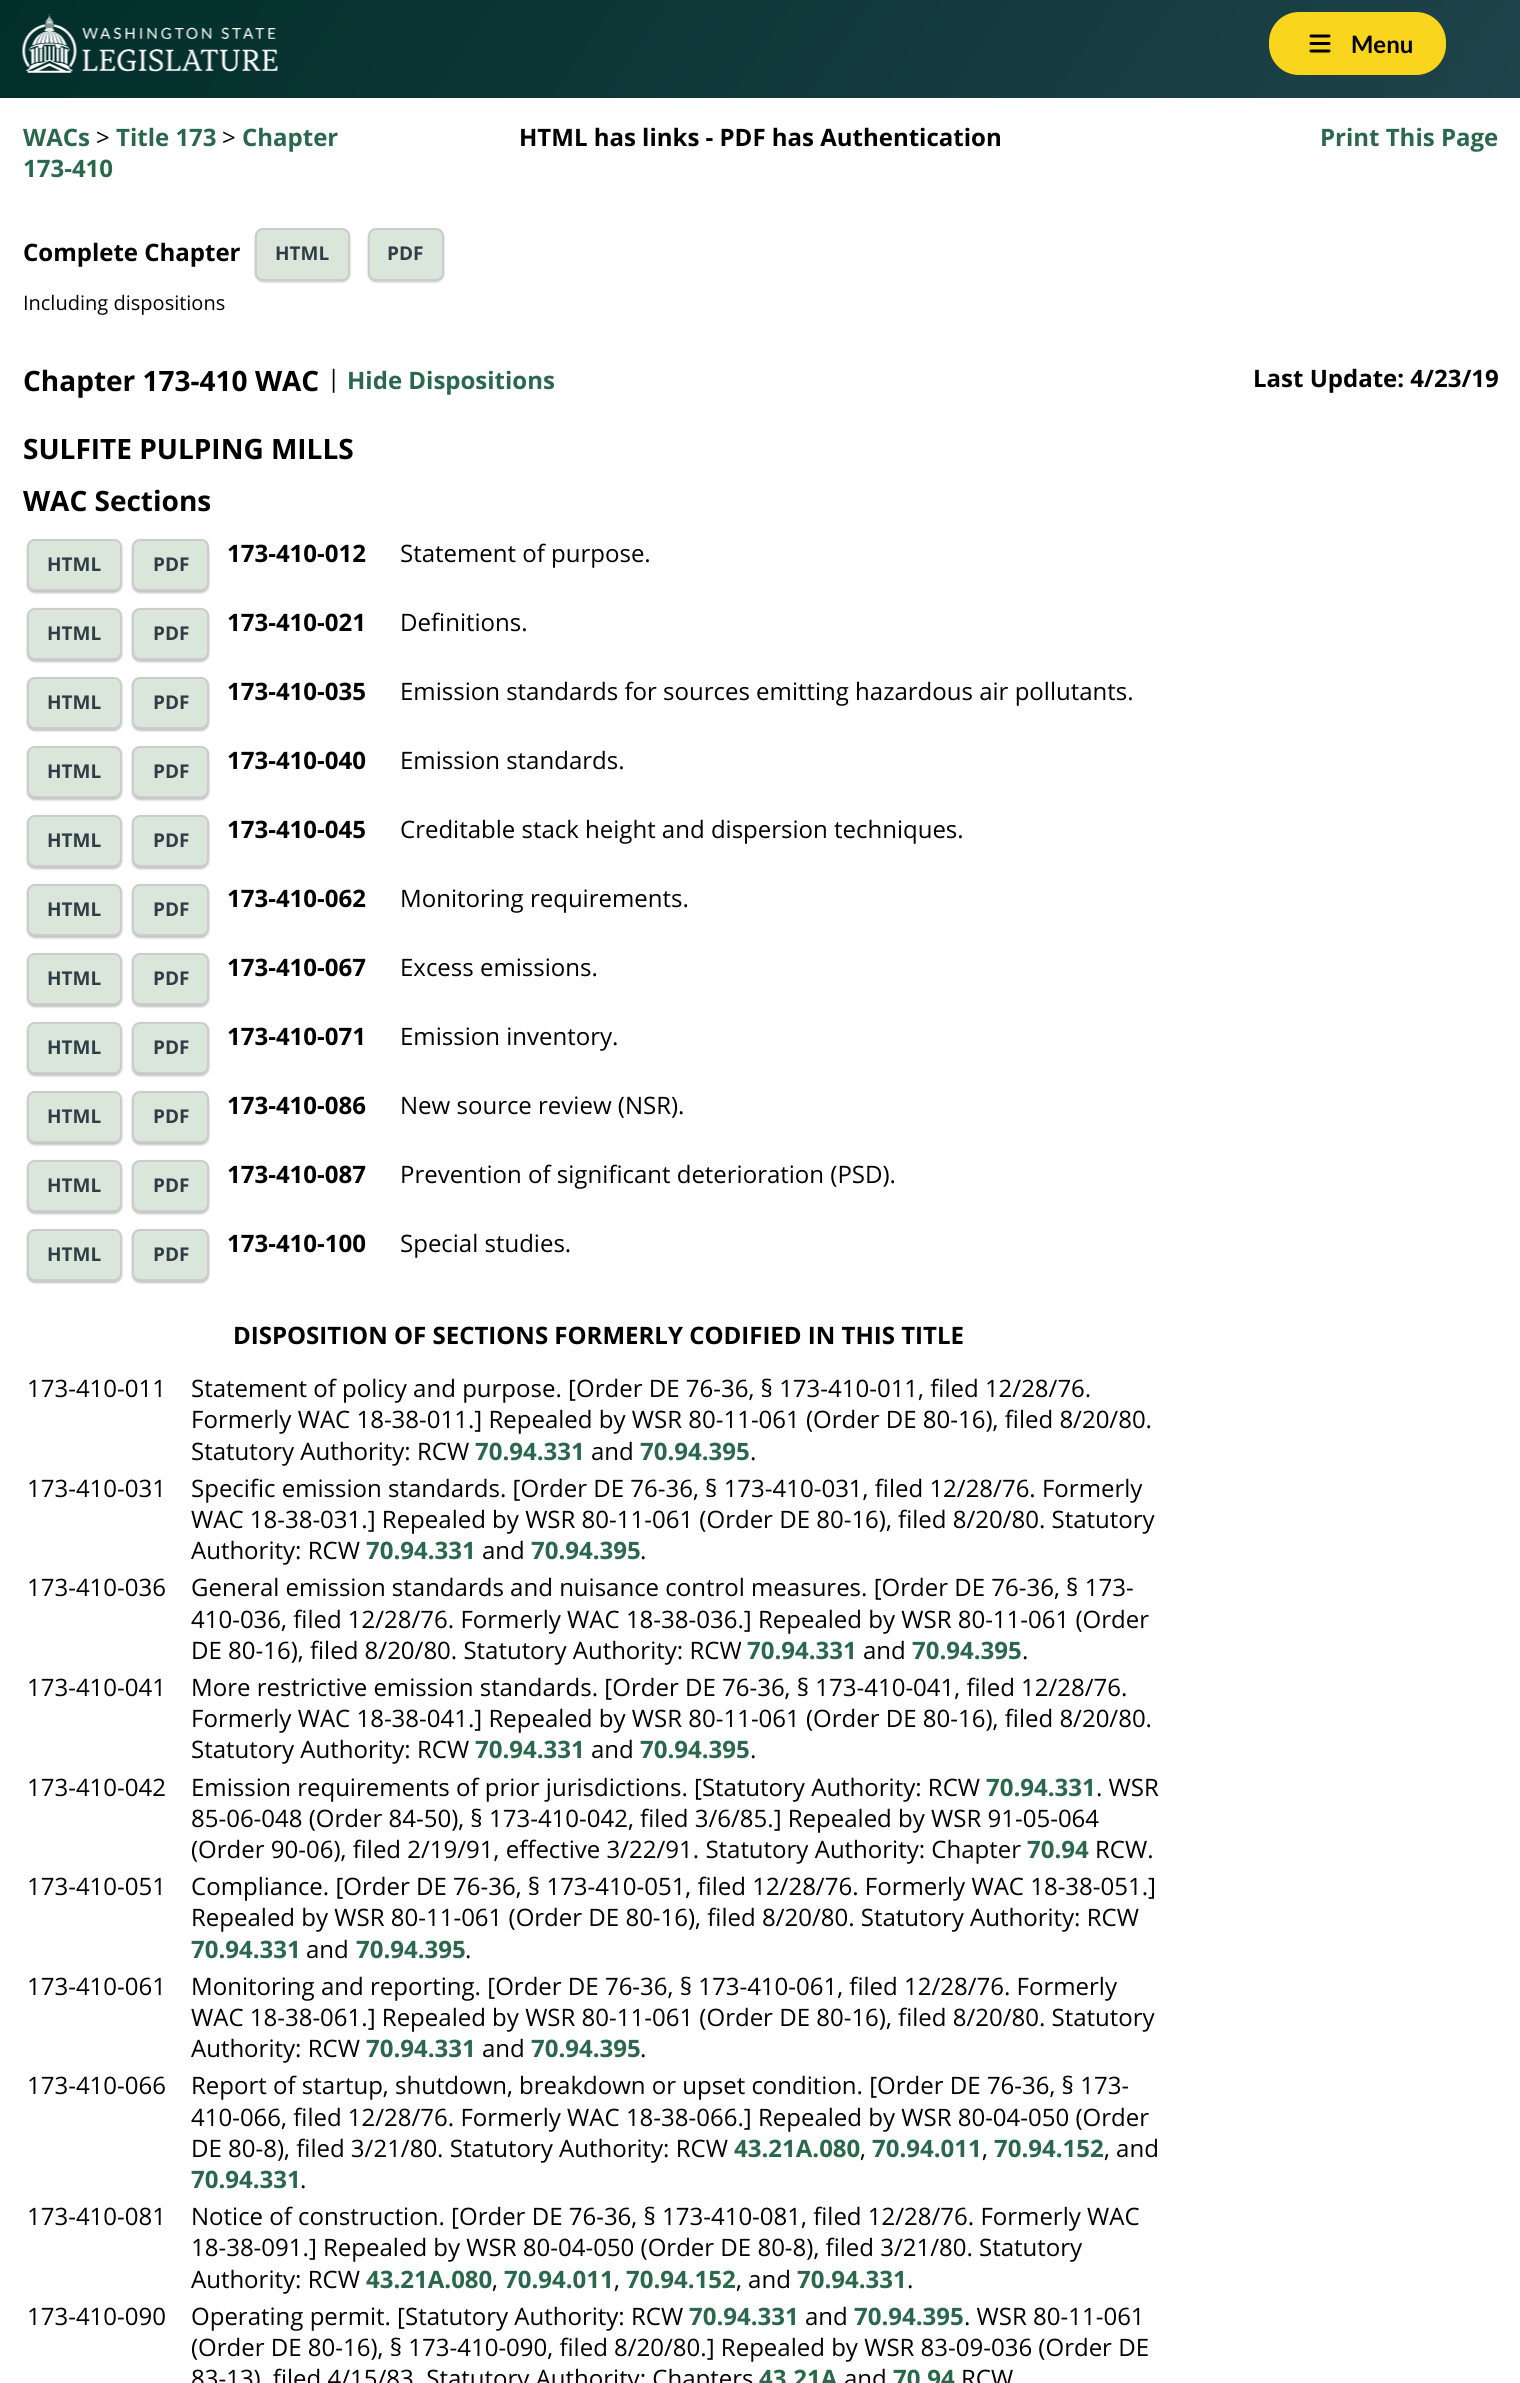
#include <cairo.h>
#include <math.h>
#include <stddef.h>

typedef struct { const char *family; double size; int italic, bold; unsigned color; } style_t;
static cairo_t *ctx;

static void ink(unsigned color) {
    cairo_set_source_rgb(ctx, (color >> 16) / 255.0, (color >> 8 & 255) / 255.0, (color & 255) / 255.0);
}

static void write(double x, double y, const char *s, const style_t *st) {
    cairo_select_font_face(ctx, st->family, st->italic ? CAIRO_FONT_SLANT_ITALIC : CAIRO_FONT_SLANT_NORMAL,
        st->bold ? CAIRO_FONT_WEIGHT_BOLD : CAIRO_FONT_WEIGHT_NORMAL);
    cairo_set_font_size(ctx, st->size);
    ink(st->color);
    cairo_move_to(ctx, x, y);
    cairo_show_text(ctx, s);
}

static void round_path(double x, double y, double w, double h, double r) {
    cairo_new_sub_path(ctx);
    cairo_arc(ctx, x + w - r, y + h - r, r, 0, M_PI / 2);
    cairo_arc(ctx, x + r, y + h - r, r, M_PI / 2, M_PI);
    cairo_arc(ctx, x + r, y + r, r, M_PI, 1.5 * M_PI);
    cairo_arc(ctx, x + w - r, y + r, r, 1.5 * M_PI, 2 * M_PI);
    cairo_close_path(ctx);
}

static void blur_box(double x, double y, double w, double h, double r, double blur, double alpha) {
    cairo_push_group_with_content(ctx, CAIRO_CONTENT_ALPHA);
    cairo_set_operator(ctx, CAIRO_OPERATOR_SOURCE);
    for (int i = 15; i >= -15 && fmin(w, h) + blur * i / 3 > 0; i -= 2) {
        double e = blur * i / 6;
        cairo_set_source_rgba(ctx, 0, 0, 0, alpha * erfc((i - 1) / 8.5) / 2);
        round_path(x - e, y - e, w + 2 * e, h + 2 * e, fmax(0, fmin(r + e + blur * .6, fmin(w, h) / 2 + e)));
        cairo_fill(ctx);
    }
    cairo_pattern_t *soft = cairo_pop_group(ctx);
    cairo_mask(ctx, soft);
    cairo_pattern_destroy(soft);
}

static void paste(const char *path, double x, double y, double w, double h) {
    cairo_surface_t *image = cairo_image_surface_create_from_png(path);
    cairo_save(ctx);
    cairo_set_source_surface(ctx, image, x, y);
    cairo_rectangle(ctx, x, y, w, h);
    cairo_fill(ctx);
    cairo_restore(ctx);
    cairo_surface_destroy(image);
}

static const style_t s1 = {"Lato", 24, 0, 1, 0x000000};
static const style_t s2 = {"Open Sans", 24, 0, 1, 0x2b674d};
static const style_t s3 = {"Open Sans", 24, 0, 0, 0x000000};
static const style_t s4 = {"Open Sans", 24, 0, 1, 0x000000};
static const style_t s5 = {"Open Sans", 19, 0, 1, 0x2f3e46};
static const style_t s6 = {"Open Sans", 20, 0, 0, 0x000000};
static const style_t s7 = {"Open Sans", 28, 0, 1, 0x000000};

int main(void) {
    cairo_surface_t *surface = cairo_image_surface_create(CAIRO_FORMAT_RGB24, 1520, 2383);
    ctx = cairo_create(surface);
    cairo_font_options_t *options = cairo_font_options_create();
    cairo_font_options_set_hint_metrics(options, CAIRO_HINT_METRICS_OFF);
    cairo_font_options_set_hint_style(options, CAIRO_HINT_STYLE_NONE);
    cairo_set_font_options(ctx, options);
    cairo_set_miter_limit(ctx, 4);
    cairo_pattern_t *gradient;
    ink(0xffffff);
    cairo_paint(ctx);
    gradient = cairo_pattern_create_linear(1306, 417, 215, -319);
    cairo_pattern_add_color_stop_rgba(gradient, 0, 0.118, 0.263, 0.29, 1);
    cairo_pattern_add_color_stop_rgba(gradient, 1, 0.004, 0.18, 0.165, 1);
    cairo_set_source(ctx, gradient);
    cairo_pattern_destroy(gradient);
    cairo_rectangle(ctx, 0, 0, 1520, 98);
    cairo_fill(ctx);
    paste("pic1.png", 22, 14, 256, 59);
    ink(0xfad51d);
    round_path(1270.5, 13.5, 174, 60, 28.5);
    cairo_fill_preserve(ctx);
    cairo_set_line_width(ctx, 3);
    cairo_stroke(ctx);
    paste("pic2.png", 1309, 34, 22, 19);
    write(1351, 53, "Menu", &s1);
    write(23, 146, "WACs", &s2);
    write(96, 146, ">", &s3);
    write(116, 146, "Title 173", &s2);
    write(222, 146, ">", &s3);
    write(242, 146, "Chapter", &s2);
    write(23, 177, "173-410", &s2);
    write(519, 146, "HTML has links - PDF has Authentication", &s4);
    write(1320, 146, "Print This Page", &s2);
    write(23, 261, "Complete Chapter", &s4);
    ink(0x333333);
    blur_box(255, 230, 95, 52, 8, 1, 0.3);
    ink(0xdbe6db);
    round_path(256, 229, 93, 51, 7);
    cairo_fill_preserve(ctx);
    ink(0xcccccc);
    cairo_set_line_width(ctx, 2);
    cairo_stroke(ctx);
    write(275, 260, "HTML", &s5);
    ink(0x333333);
    blur_box(368, 230, 76, 52, 8, 1, 0.3);
    ink(0xdbe6db);
    round_path(369, 229, 74, 51, 7);
    cairo_fill_preserve(ctx);
    ink(0xcccccc);
    cairo_stroke(ctx);
    write(387, 260, "PDF", &s5);
    write(23, 310, "Including dispositions", &s6);
    write(23, 391, "Chapter 173-410 WAC", &s7);
    write(327, 387, "|", &s3);
    write(347, 389, "Hide Dispositions", &s2);
    write(1253, 387, "Last Update: 4/23/19", &s4);
    write(23, 459, "SULFITE PULPING MILLS", &s7);
    write(23, 511, "WAC Sections", &s7);
    ink(0x333333);
    blur_box(27, 540, 95, 53, 8, 1, 0.3);
    ink(0xdbe6db);
    round_path(28, 540, 93, 50, 7);
    cairo_fill_preserve(ctx);
    ink(0xcccccc);
    cairo_stroke(ctx);
    write(47, 571, "HTML", &s5);
    ink(0x333333);
    blur_box(132, 540, 77, 53, 8, 1, 0.3);
    ink(0xdbe6db);
    round_path(133, 540, 75, 50, 7);
    cairo_fill_preserve(ctx);
    ink(0xcccccc);
    cairo_stroke(ctx);
    write(153, 571, "PDF", &s5);
    write(227, 562, "173-410-012", &s4);
    write(400, 562, "Statement of purpose.", &s3);
    ink(0x333333);
    blur_box(27, 609, 95, 53, 8, 1, 0.3);
    ink(0xdbe6db);
    round_path(28, 609, 93, 50, 7);
    cairo_fill_preserve(ctx);
    ink(0xcccccc);
    cairo_stroke(ctx);
    write(47, 640, "HTML", &s5);
    ink(0x333333);
    blur_box(132, 609, 77, 53, 8, 1, 0.3);
    ink(0xdbe6db);
    round_path(133, 609, 75, 50, 7);
    cairo_fill_preserve(ctx);
    ink(0xcccccc);
    cairo_stroke(ctx);
    write(153, 640, "PDF", &s5);
    write(227, 631, "173-410-021", &s4);
    write(400, 631, "Definitions.", &s3);
    ink(0x333333);
    blur_box(27, 678, 95, 53, 8, 1, 0.3);
    ink(0xdbe6db);
    round_path(28, 678, 93, 50, 7);
    cairo_fill_preserve(ctx);
    ink(0xcccccc);
    cairo_stroke(ctx);
    write(47, 709, "HTML", &s5);
    ink(0x333333);
    blur_box(132, 678, 77, 53, 8, 1, 0.3);
    ink(0xdbe6db);
    round_path(133, 678, 75, 50, 7);
    cairo_fill_preserve(ctx);
    ink(0xcccccc);
    cairo_stroke(ctx);
    write(153, 709, "PDF", &s5);
    write(227, 700, "173-410-035", &s4);
    write(400, 700, "Emission standards for sources emitting hazardous air pollutants.", &s3);
    ink(0x333333);
    blur_box(27, 747, 95, 53, 8, 1, 0.3);
    ink(0xdbe6db);
    round_path(28, 747, 93, 50, 7);
    cairo_fill_preserve(ctx);
    ink(0xcccccc);
    cairo_stroke(ctx);
    write(47, 778, "HTML", &s5);
    ink(0x333333);
    blur_box(132, 747, 77, 53, 8, 1, 0.3);
    ink(0xdbe6db);
    round_path(133, 747, 75, 50, 7);
    cairo_fill_preserve(ctx);
    ink(0xcccccc);
    cairo_stroke(ctx);
    write(153, 778, "PDF", &s5);
    write(227, 769, "173-410-040", &s4);
    write(400, 769, "Emission standards.", &s3);
    ink(0x333333);
    blur_box(27, 816, 95, 53, 8, 1, 0.3);
    ink(0xdbe6db);
    round_path(28, 816, 93, 50, 7);
    cairo_fill_preserve(ctx);
    ink(0xcccccc);
    cairo_stroke(ctx);
    write(47, 847, "HTML", &s5);
    ink(0x333333);
    blur_box(132, 816, 77, 53, 8, 1, 0.3);
    ink(0xdbe6db);
    round_path(133, 816, 75, 50, 7);
    cairo_fill_preserve(ctx);
    ink(0xcccccc);
    cairo_stroke(ctx);
    write(153, 847, "PDF", &s5);
    write(227, 838, "173-410-045", &s4);
    write(400, 838, "Creditable stack height and dispersion techniques.", &s3);
    ink(0x333333);
    blur_box(27, 885, 95, 53, 8, 1, 0.3);
    ink(0xdbe6db);
    round_path(28, 885, 93, 50, 7);
    cairo_fill_preserve(ctx);
    ink(0xcccccc);
    cairo_stroke(ctx);
    write(47, 916, "HTML", &s5);
    ink(0x333333);
    blur_box(132, 885, 77, 53, 8, 1, 0.3);
    ink(0xdbe6db);
    round_path(133, 885, 75, 50, 7);
    cairo_fill_preserve(ctx);
    ink(0xcccccc);
    cairo_stroke(ctx);
    write(153, 916, "PDF", &s5);
    write(227, 907, "173-410-062", &s4);
    write(400, 907, "Monitoring requirements.", &s3);
    ink(0x333333);
    blur_box(27, 954, 95, 53, 8, 1, 0.3);
    ink(0xdbe6db);
    round_path(28, 954, 93, 50, 7);
    cairo_fill_preserve(ctx);
    ink(0xcccccc);
    cairo_stroke(ctx);
    write(47, 985, "HTML", &s5);
    ink(0x333333);
    blur_box(132, 954, 77, 53, 8, 1, 0.3);
    ink(0xdbe6db);
    round_path(133, 954, 75, 50, 7);
    cairo_fill_preserve(ctx);
    ink(0xcccccc);
    cairo_stroke(ctx);
    write(153, 985, "PDF", &s5);
    write(227, 976, "173-410-067", &s4);
    write(400, 976, "Excess emissions.", &s3);
    ink(0x333333);
    blur_box(27, 1023, 95, 53, 8, 1, 0.3);
    ink(0xdbe6db);
    round_path(28, 1023, 93, 50, 7);
    cairo_fill_preserve(ctx);
    ink(0xcccccc);
    cairo_stroke(ctx);
    write(47, 1054, "HTML", &s5);
    ink(0x333333);
    blur_box(132, 1023, 77, 53, 8, 1, 0.3);
    ink(0xdbe6db);
    round_path(133, 1023, 75, 50, 7);
    cairo_fill_preserve(ctx);
    ink(0xcccccc);
    cairo_stroke(ctx);
    write(153, 1054, "PDF", &s5);
    write(227, 1045, "173-410-071", &s4);
    write(400, 1045, "Emission inventory.", &s3);
    ink(0x333333);
    blur_box(27, 1092, 95, 53, 8, 1, 0.3);
    ink(0xdbe6db);
    round_path(28, 1092, 93, 50, 7);
    cairo_fill_preserve(ctx);
    ink(0xcccccc);
    cairo_stroke(ctx);
    write(47, 1123, "HTML", &s5);
    ink(0x333333);
    blur_box(132, 1092, 77, 53, 8, 1, 0.3);
    ink(0xdbe6db);
    round_path(133, 1092, 75, 50, 7);
    cairo_fill_preserve(ctx);
    ink(0xcccccc);
    cairo_stroke(ctx);
    write(153, 1123, "PDF", &s5);
    write(227, 1114, "173-410-086", &s4);
    write(400, 1114, "New source review (NSR).", &s3);
    ink(0x333333);
    blur_box(27, 1161, 95, 53, 8, 1, 0.3);
    ink(0xdbe6db);
    round_path(28, 1161, 93, 50, 7);
    cairo_fill_preserve(ctx);
    ink(0xcccccc);
    cairo_stroke(ctx);
    write(47, 1192, "HTML", &s5);
    ink(0x333333);
    blur_box(132, 1161, 77, 53, 8, 1, 0.3);
    ink(0xdbe6db);
    round_path(133, 1161, 75, 50, 7);
    cairo_fill_preserve(ctx);
    ink(0xcccccc);
    cairo_stroke(ctx);
    write(153, 1192, "PDF", &s5);
    write(227, 1183, "173-410-087", &s4);
    write(400, 1183, "Prevention of significant deterioration (PSD).", &s3);
    ink(0x333333);
    blur_box(27, 1230, 95, 53, 8, 1, 0.3);
    ink(0xdbe6db);
    round_path(28, 1230, 93, 50, 7);
    cairo_fill_preserve(ctx);
    ink(0xcccccc);
    cairo_stroke(ctx);
    write(47, 1261, "HTML", &s5);
    ink(0x333333);
    blur_box(132, 1230, 77, 53, 8, 1, 0.3);
    ink(0xdbe6db);
    round_path(133, 1230, 75, 50, 7);
    cairo_fill_preserve(ctx);
    ink(0xcccccc);
    cairo_stroke(ctx);
    write(153, 1261, "PDF", &s5);
    write(227, 1252, "173-410-100", &s4);
    write(400, 1252, "Special studies.", &s3);
    write(233, 1344, "DISPOSITION OF SECTIONS FORMERLY CODIFIED IN THIS TITLE", &s4);
    write(27, 1397, "173-410-011", &s3);
    write(191, 1397, "Statement of policy and purpose. [Order DE 76-36, § 173-410-011, filed 12/28/76.", &s3);
    write(191, 1428, "Formerly WAC 18-38-011.] Repealed by WSR 80-11-061 (Order DE 80-16), filed 8/20/80.", &s3);
    write(191, 1460, "Statutory Authority: RCW", &s3);
    write(475, 1460, "70.94.331", &s2);
    write(591, 1460, "and", &s3);
    write(640, 1460, "70.94.395", &s2);
    write(750, 1460, ".", &s3);
    write(27, 1497, "173-410-031", &s3);
    write(191, 1497, "Specific emission standards. [Order DE 76-36, § 173-410-031, filed 12/28/76. Formerly", &s3);
    write(191, 1528, "WAC 18-38-031.] Repealed by WSR 80-11-061 (Order DE 80-16), filed 8/20/80. Statutory", &s3);
    write(191, 1559, "Authority: RCW", &s3);
    write(366, 1559, "70.94.331", &s2);
    write(482, 1559, "and", &s3);
    write(531, 1559, "70.94.395", &s2);
    write(640, 1559, ".", &s3);
    write(27, 1596, "173-410-036", &s3);
    write(191, 1596, "General emission standards and nuisance control measures. [Order DE 76-36, § 173-", &s3);
    write(191, 1628, "410-036, filed 12/28/76. Formerly WAC 18-38-036.] Repealed by WSR 80-11-061 (Order", &s3);
    write(191, 1659, "DE 80-16), filed 8/20/80. Statutory Authority: RCW", &s3);
    write(747, 1659, "70.94.331", &s2);
    write(863, 1659, "and", &s3);
    write(912, 1659, "70.94.395", &s2);
    write(1022, 1659, ".", &s3);
    write(27, 1696, "173-410-041", &s3);
    write(191, 1696, "More restrictive emission standards. [Order DE 76-36, § 173-410-041, filed 12/28/76.", &s3);
    write(191, 1727, "Formerly WAC 18-38-041.] Repealed by WSR 80-11-061 (Order DE 80-16), filed 8/20/80.", &s3);
    write(191, 1758, "Statutory Authority: RCW", &s3);
    write(475, 1758, "70.94.331", &s2);
    write(591, 1758, "and", &s3);
    write(640, 1758, "70.94.395", &s2);
    write(750, 1758, ".", &s3);
    write(27, 1796, "173-410-042", &s3);
    write(191, 1796, "Emission requirements of prior jurisdictions. [Statutory Authority: RCW", &s3);
    write(986, 1796, "70.94.331", &s2);
    write(1096, 1796, ". WSR", &s3);
    write(191, 1827, "85-06-048 (Order 84-50), § 173-410-042, filed 3/6/85.] Repealed by WSR 91-05-064", &s3);
    write(191, 1858, "(Order 90-06), filed 2/19/91, effective 3/22/91. Statutory Authority: Chapter", &s3);
    write(1027, 1858, "70.94", &s2);
    write(1095, 1858, "RCW.", &s3);
    write(27, 1895, "173-410-051", &s3);
    write(191, 1895, "Compliance. [Order DE 76-36, § 173-410-051, filed 12/28/76. Formerly WAC 18-38-051.]", &s3);
    write(191, 1926, "Repealed by WSR 80-11-061 (Order DE 80-16), filed 8/20/80. Statutory Authority: RCW", &s3);
    write(191, 1958, "70.94.331", &s2);
    write(306, 1958, "and", &s3);
    write(356, 1958, "70.94.395", &s2);
    write(465, 1958, ".", &s3);
    write(27, 1995, "173-410-061", &s3);
    write(191, 1995, "Monitoring and reporting. [Order DE 76-36, § 173-410-061, filed 12/28/76. Formerly", &s3);
    write(191, 2026, "WAC 18-38-061.] Repealed by WSR 80-11-061 (Order DE 80-16), filed 8/20/80. Statutory", &s3);
    write(191, 2057, "Authority: RCW", &s3);
    write(366, 2057, "70.94.331", &s2);
    write(482, 2057, "and", &s3);
    write(531, 2057, "70.94.395", &s2);
    write(640, 2057, ".", &s3);
    write(27, 2094, "173-410-066", &s3);
    write(191, 2094, "Report of startup, shutdown, breakdown or upset condition. [Order DE 76-36, § 173-", &s3);
    write(191, 2126, "410-066, filed 12/28/76. Formerly WAC 18-38-066.] Repealed by WSR 80-04-050 (Order", &s3);
    write(191, 2157, "DE 80-8), filed 3/21/80. Statutory Authority: RCW", &s3);
    write(734, 2157, "43.21A.080", &s2);
    write(860, 2157, ",", &s3);
    write(872, 2157, "70.94.011", &s2);
    write(982, 2157, ",", &s3);
    write(994, 2157, "70.94.152", &s2);
    write(1104, 2157, ", and", &s3);
    write(191, 2188, "70.94.331", &s2);
    write(300, 2188, ".", &s3);
    write(27, 2225, "173-410-081", &s3);
    write(191, 2225, "Notice of construction. [Order DE 76-36, § 173-410-081, filed 12/28/76. Formerly WAC", &s3);
    write(191, 2256, "18-38-091.] Repealed by WSR 80-04-050 (Order DE 80-8), filed 3/21/80. Statutory", &s3);
    write(191, 2288, "Authority: RCW", &s3);
    write(366, 2288, "43.21A.080", &s2);
    write(492, 2288, ",", &s3);
    write(504, 2288, "70.94.011", &s2);
    write(614, 2288, ",", &s3);
    write(626, 2288, "70.94.152", &s2);
    write(736, 2288, ", and", &s3);
    write(797, 2288, "70.94.331", &s2);
    write(907, 2288, ".", &s3);
    write(27, 2325, "173-410-090", &s3);
    write(191, 2325, "Operating permit. [Statutory Authority: RCW", &s3);
    write(689, 2325, "70.94.331", &s2);
    write(805, 2325, "and", &s3);
    write(854, 2325, "70.94.395", &s2);
    write(964, 2325, ". WSR 80-11-061", &s3);
    write(191, 2356, "(Order DE 80-16), § 173-410-090, filed 8/20/80.] Repealed by WSR 83-09-036 (Order DE", &s3);
    write(191, 2387, "83-13), filed 4/15/83. Statutory Authority: Chapters", &s3);
    write(759, 2387, "43.21A", &s2);
    write(844, 2387, "and", &s3);
    write(893, 2387, "70.94", &s2);
    write(961, 2387, "RCW", &s3);
    cairo_surface_write_to_png(surface, "screenshot.png");
    cairo_font_options_destroy(options);
    cairo_destroy(ctx);
    cairo_surface_destroy(surface);
    return 0;
}
